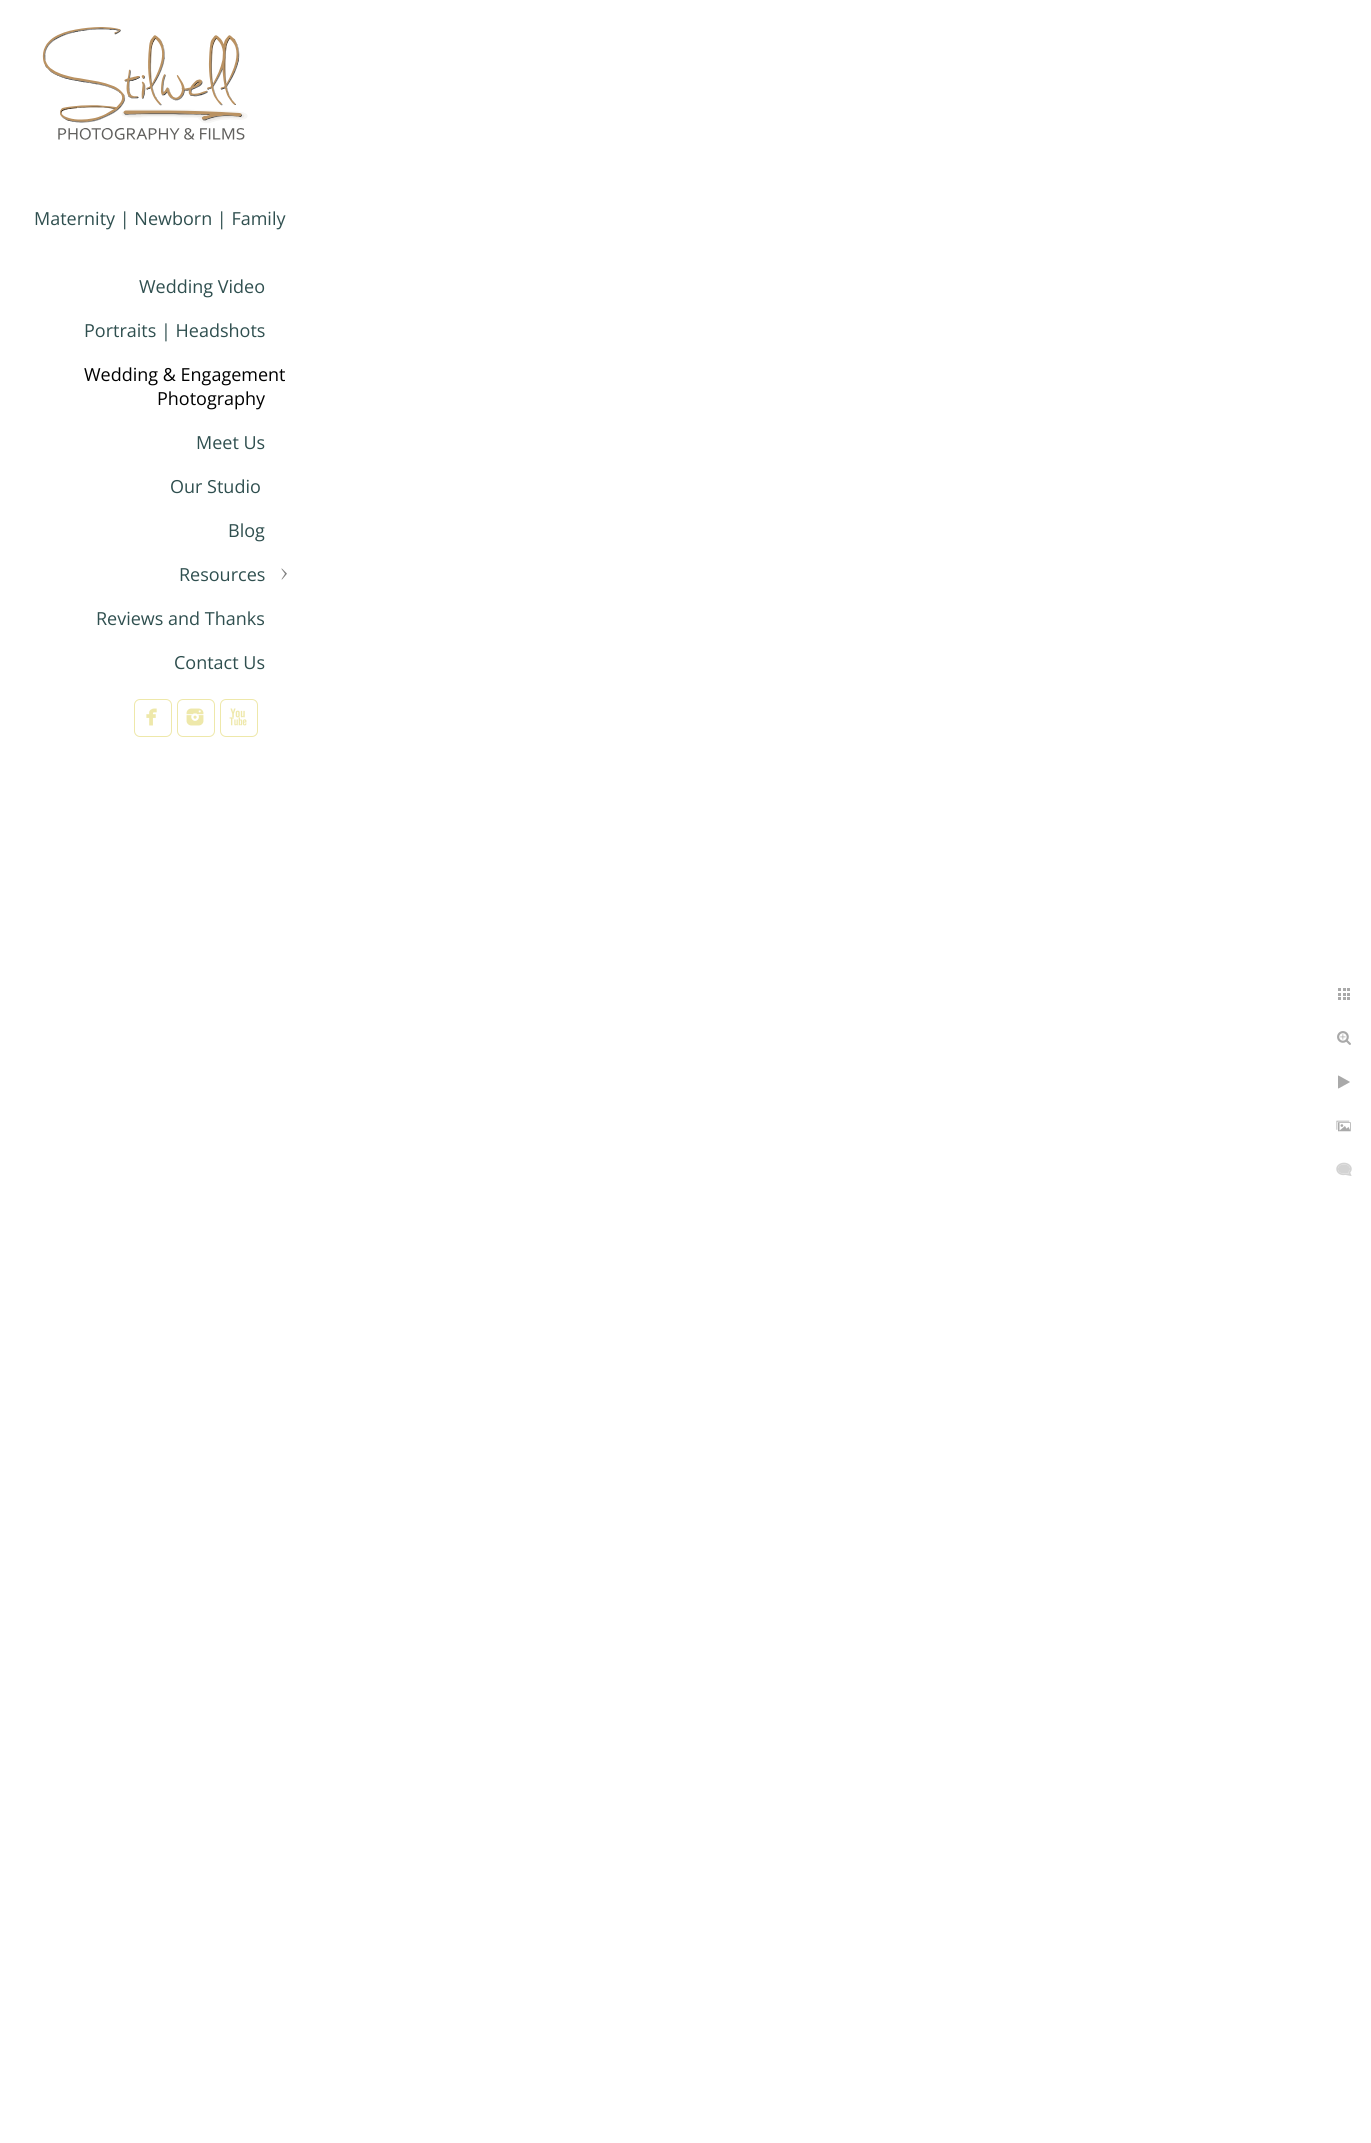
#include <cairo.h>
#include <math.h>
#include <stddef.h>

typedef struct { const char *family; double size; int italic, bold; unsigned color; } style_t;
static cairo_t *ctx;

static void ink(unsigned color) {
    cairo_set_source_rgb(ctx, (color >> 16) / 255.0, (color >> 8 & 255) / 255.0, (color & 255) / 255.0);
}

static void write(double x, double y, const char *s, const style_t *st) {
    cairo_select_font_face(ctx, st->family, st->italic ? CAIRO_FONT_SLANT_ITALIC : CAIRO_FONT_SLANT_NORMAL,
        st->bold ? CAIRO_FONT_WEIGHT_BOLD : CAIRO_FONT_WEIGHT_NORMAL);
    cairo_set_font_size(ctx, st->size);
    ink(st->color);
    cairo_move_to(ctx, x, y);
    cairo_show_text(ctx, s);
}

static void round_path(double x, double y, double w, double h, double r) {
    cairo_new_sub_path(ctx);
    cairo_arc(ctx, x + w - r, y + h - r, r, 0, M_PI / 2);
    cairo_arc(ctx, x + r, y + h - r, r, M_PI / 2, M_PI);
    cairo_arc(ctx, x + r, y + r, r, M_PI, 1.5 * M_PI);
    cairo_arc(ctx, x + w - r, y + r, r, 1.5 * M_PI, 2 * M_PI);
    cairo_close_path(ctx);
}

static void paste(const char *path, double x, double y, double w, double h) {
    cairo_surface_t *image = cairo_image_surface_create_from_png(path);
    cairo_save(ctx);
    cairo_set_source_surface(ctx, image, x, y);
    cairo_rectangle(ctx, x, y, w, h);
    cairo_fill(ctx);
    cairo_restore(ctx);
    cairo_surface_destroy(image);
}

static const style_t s1 = {"Open Sans", 18, 0, 0, 0x2f4f4f};
static const style_t s2 = {"Open Sans", 18, 0, 0, 0x000000};

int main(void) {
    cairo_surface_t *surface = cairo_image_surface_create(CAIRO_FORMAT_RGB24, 1371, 2143);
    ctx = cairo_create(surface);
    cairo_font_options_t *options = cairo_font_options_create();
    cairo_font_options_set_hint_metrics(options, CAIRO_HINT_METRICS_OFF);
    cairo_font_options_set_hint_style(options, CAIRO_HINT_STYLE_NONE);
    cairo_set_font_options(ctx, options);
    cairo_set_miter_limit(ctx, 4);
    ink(0xffffff);
    cairo_paint(ctx);
    paste("pic1.png", 42, 27, 206, 113);
    write(34, 225, "Maternity | Newborn | Family", &s1);
    write(139, 293, "Wedding Video", &s1);
    write(84, 337, "Portraits | Headshots", &s1);
    write(84, 381, "Wedding & Engagement", &s2);
    write(157, 405, "Photography", &s2);
    write(196, 449, "Meet Us", &s1);
    write(170, 493, "Our Studio", &s1);
    write(228, 537, "Blog", &s1);
    write(179, 581, "Resources", &s1);
    paste("pic2.png", 281, 568, 6, 12);
    write(96, 625, "Reviews and Thanks", &s1);
    write(174, 669, "Contact Us", &s1);
    round_path(134.5, 699.5, 37, 37, 5.5);
    ink(0xeee8aa);
    cairo_set_line_width(ctx, 1);
    cairo_stroke(ctx);
    paste("pic3.png", 146, 708, 11, 18);
    round_path(177.5, 699.5, 37, 37, 5.5);
    cairo_stroke(ctx);
    paste("pic4.png", 186, 708, 18, 18);
    round_path(220.5, 699.5, 37, 37, 5.5);
    cairo_stroke(ctx);
    paste("pic5.png", 229, 708, 18, 18);
    paste("pic6.png", 1338, 988, 12, 12);
    paste("pic7.png", 1337, 1031, 14, 14);
    paste("pic8.png", 1338, 1075, 12, 14);
    paste("pic9.png", 1336, 1120, 15, 12);
    paste("pic10.png", 1336, 1162, 16, 14);
    cairo_surface_write_to_png(surface, "screenshot.png");
    cairo_font_options_destroy(options);
    cairo_destroy(ctx);
    cairo_surface_destroy(surface);
    return 0;
}
